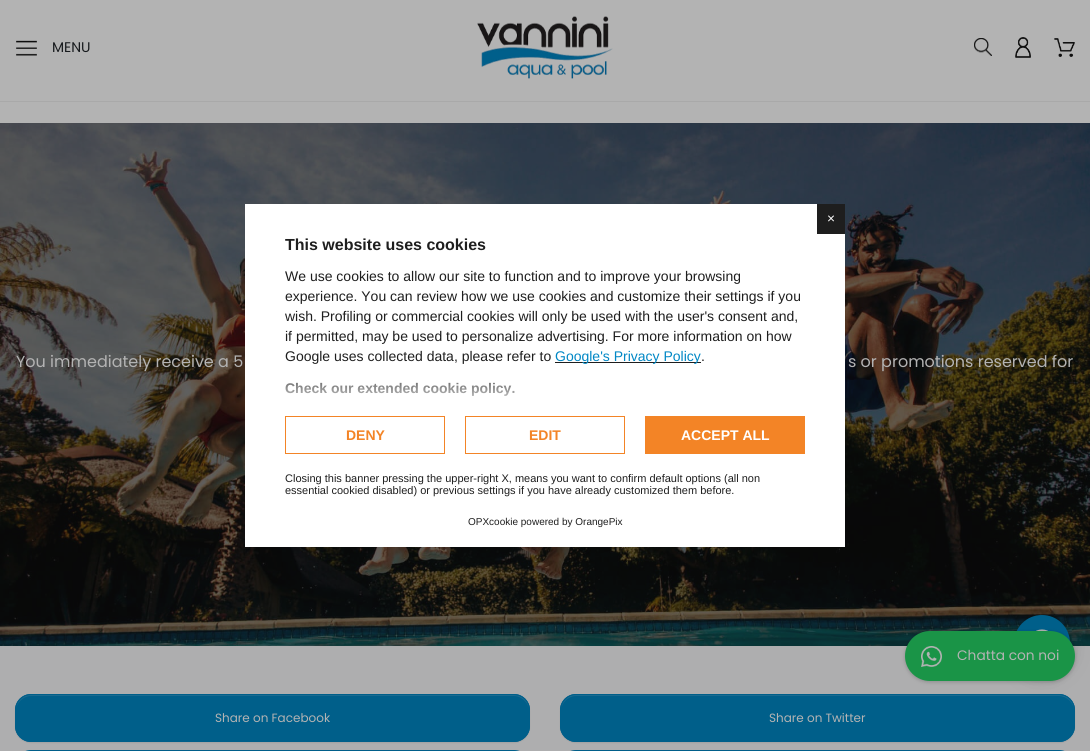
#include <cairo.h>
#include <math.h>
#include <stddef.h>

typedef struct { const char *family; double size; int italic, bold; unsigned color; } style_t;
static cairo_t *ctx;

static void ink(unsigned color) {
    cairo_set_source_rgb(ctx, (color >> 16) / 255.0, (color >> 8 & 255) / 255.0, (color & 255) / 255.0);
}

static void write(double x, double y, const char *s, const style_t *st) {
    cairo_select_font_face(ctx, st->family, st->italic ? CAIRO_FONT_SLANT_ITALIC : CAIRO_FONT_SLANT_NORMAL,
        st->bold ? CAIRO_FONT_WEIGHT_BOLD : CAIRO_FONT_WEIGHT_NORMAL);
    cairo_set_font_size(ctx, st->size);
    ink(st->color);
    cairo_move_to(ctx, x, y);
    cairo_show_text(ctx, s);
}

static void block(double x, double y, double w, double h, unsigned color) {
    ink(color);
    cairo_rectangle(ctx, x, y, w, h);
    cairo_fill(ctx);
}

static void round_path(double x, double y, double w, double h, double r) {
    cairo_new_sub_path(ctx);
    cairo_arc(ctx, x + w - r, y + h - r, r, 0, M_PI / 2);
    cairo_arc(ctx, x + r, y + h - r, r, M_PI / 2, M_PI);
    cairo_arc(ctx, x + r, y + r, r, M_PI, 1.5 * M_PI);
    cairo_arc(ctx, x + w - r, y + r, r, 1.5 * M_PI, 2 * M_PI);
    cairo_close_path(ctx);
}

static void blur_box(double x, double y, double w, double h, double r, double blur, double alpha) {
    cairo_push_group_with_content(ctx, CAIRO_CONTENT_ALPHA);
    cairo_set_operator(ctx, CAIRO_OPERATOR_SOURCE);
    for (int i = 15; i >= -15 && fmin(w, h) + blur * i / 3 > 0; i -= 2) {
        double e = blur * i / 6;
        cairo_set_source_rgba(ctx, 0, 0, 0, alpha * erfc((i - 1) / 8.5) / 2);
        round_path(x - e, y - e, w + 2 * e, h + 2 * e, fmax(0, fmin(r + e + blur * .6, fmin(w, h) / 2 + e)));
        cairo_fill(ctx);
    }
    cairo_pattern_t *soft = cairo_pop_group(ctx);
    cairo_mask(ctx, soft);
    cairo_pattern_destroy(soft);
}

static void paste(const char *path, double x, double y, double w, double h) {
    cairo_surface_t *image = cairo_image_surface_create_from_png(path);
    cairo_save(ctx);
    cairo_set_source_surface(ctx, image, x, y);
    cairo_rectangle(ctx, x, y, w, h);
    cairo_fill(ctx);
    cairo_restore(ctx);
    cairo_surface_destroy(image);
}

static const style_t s1 = {"Poppins", 14, 0, 0, 0x171a1d};
static const style_t s2 = {"Poppins", 16, 0, 0, 0xb3b3b3};
static const style_t s3 = {"Poppins", 13.75, 0, 0, 0xb3b3b3};
static const style_t s4 = {"Poppins", 12, 0, 0, 0xb3b3b3};
static const style_t s5 = {"Liberation Sans", 13.75, 0, 0, 0xffffff};
static const style_t s6 = {"Liberation Sans", 16, 0, 1, 0x1e1e1e};
static const style_t s7 = {"Liberation Sans", 14, 0, 0, 0x1e1e1e};
static const style_t s8 = {"Liberation Sans", 14, 0, 0, 0x0087c5};
static const style_t s9 = {"Liberation Sans", 14, 0, 1, 0x1e1e1e};
static const style_t s10 = {"Liberation Sans", 14, 0, 1, 0xf38426};
static const style_t s11 = {"Liberation Sans", 14, 0, 1, 0xffffff};
static const style_t s12 = {"Liberation Sans", 11, 0, 0, 0x1e1e1e};
static const style_t s13 = {"Liberation Sans", 10, 0, 0, 0x1e1e1e};

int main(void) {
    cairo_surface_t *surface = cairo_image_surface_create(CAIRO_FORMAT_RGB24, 1090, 751);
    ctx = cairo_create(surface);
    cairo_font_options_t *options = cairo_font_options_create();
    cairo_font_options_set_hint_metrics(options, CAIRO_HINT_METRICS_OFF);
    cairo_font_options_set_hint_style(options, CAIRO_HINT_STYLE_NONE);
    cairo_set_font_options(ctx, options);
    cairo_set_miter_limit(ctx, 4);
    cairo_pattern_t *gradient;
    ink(0xb3b3b3);
    cairo_paint(ctx);
    paste("pic1.png", 16, 40, 21, 16);
    write(52, 52, "MENU", &s1);
    paste("pic2.png", 477, 16, 136, 63);
    paste("pic3.png", 974, 38, 18, 18);
    paste("pic4.png", 1015, 37, 16, 21);
    paste("pic5.png", 1054, 38, 21, 19);
    block(0, 101, 1090, 1, 0xa9a9a9);
    paste("pic6.png", 0, 123, 1090, 523);
    write(16, 367, "You immediately receive a 5", &s2);
    write(848, 367, "s or promotions reserved for", &s2);
    block(0, 646, 1090, 105, 0xaeaeaf);
    ink(0x000000);
    blur_box(560, 695, 515, 48, 16, 0.5, 0.07);
    ink(0x005f8a);
    round_path(560, 694, 515, 48, 16);
    cairo_fill(ctx);
    ink(0x1b6b90);
    cairo_new_path(ctx);
    cairo_move_to(ctx, 576, 696);
    cairo_line_to(ctx, 1059, 696);
    cairo_curve_to(ctx, 1067, 696, 1074, 703, 1074, 711);
    cairo_curve_to(ctx, 1074, 702, 1068, 695, 1059, 695);
    cairo_line_to(ctx, 573, 695);
    cairo_curve_to(ctx, 565, 697, 561, 704, 561, 711);
    cairo_curve_to(ctx, 561, 703, 568, 696, 576, 696);
    cairo_close_path(ctx);
    cairo_fill(ctx);
    round_path(560.5, 694.5, 514, 47, 15.5);
    ink(0x005f8a);
    cairo_set_line_width(ctx, 1);
    cairo_stroke(ctx);
    ink(0x000000);
    blur_box(1014, 619, 56, 56, 28, 10, 0.2);
    ink(0x005f8a);
    cairo_arc(ctx, 1042, 643, 28, 0, 2 * M_PI);
    cairo_fill(ctx);
    paste("pic8.png", 1036, 629, 12, 2);
    ink(0x000000);
    blur_box(905, 632, 170, 50, 25, 2, 0.2);
    ink(0x1a9447);
    round_path(905, 631, 170, 50, 25);
    cairo_fill(ctx);
    paste("pic7.png", 921, 646, 21, 21);
    write(957, 660, "Chatta con noi", &s3);
    ink(0x000000);
    blur_box(15, 695, 515, 48, 16, 0.5, 0.07);
    ink(0x005f8a);
    round_path(15, 694, 515, 48, 16);
    cairo_fill(ctx);
    ink(0x1b6b90);
    cairo_new_path(ctx);
    cairo_move_to(ctx, 31, 696);
    cairo_line_to(ctx, 514, 696);
    cairo_curve_to(ctx, 522, 696, 529, 703, 529, 711);
    cairo_curve_to(ctx, 529, 702, 523, 695, 514, 695);
    cairo_line_to(ctx, 28, 695);
    cairo_curve_to(ctx, 20, 697, 16, 704, 16, 711);
    cairo_curve_to(ctx, 16, 703, 23, 696, 31, 696);
    cairo_close_path(ctx);
    cairo_fill(ctx);
    round_path(15.5, 694.5, 514, 47, 15.5);
    ink(0x005f8a);
    cairo_stroke(ctx);
    write(215, 722, "Share on Facebook", &s4);
    write(769, 722, "Share on Twitter", &s4);
    round_path(15.5, 750.5, 514, 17, 15.5);
    ink(0x005f8a);
    cairo_stroke(ctx);
    round_path(560.5, 750.5, 514, 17, 15.5);
    cairo_stroke(ctx);
    block(245, 204, 600, 343, 0xffffff);
    block(817, 204, 28, 30, 0x1e1e1e);
    write(827, 223, "×", &s5);
    write(285, 250, "This website uses cookies", &s6);
    write(285, 281, "We use cookies to allow our site to function and to improve your browsing", &s7);
    write(285, 301, "experience. You can review how we use cookies and customize their settings if you", &s7);
    write(285, 321, "wish. Profiling or commercial cookies will only be used with the user's consent and,", &s7);
    write(285, 341, "if permitted, may be used to personalize advertising. For more information on how", &s7);
    write(285, 361, "Google uses collected data, please refer to", &s7);
    block(555, 362, 146, 1, 0x1e1e1e);
    write(555, 361, "Google's Privacy Policy", &s8);
    write(701, 361, ".", &s7);
    write(285, 393, "Check our extended cookie policy.", &s9);
    gradient = cairo_pattern_create_linear(545, 413, 545, 363);
    cairo_pattern_add_color_stop_rgba(gradient, 0, 1, 1, 1, 1);
    cairo_pattern_add_color_stop_rgba(gradient, 1, 1, 1, 1, 0);
    cairo_set_source(ctx, gradient);
    cairo_pattern_destroy(gradient);
    cairo_rectangle(ctx, 285, 382, 230, 14);
    cairo_fill(ctx);
    cairo_rectangle(ctx, 285.5, 416.5, 159, 37);
    ink(0xf38426);
    cairo_stroke(ctx);
    write(346, 440, "DENY", &s10);
    cairo_rectangle(ctx, 465.5, 416.5, 159, 37);
    cairo_stroke(ctx);
    write(529, 440, "EDIT", &s10);
    block(645, 416, 160, 38, 0xf38426);
    write(681, 440, "ACCEPT ALL", &s11);
    write(285, 482, "Closing this banner pressing the upper-right X, means you want to confirm default options (all non", &s12);
    write(285, 494, "essential cookied disabled) or previous settings if you have already customized them before.", &s12);
    write(468, 525, "OPXcookie powered by OrangePix", &s13);
    cairo_surface_write_to_png(surface, "screenshot.png");
    cairo_font_options_destroy(options);
    cairo_destroy(ctx);
    cairo_surface_destroy(surface);
    return 0;
}
